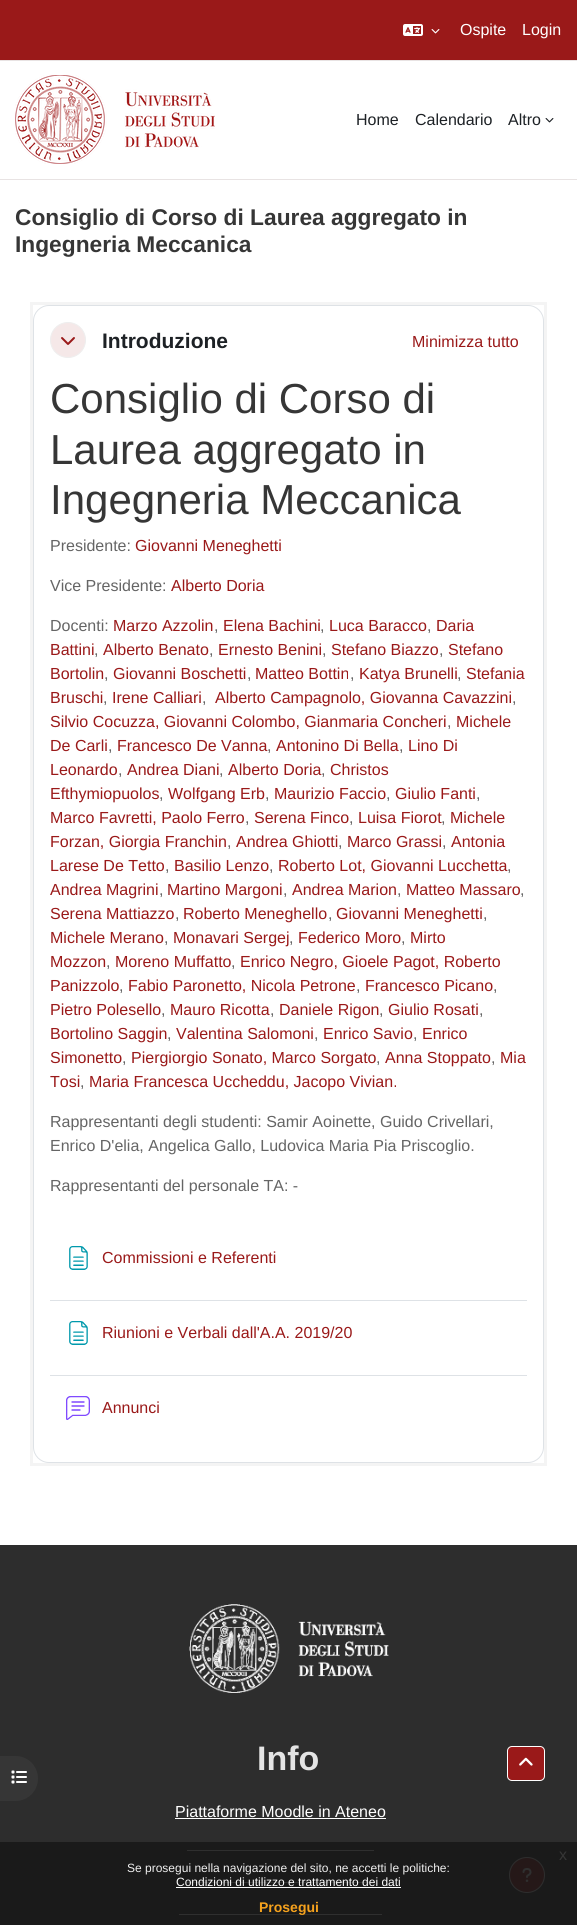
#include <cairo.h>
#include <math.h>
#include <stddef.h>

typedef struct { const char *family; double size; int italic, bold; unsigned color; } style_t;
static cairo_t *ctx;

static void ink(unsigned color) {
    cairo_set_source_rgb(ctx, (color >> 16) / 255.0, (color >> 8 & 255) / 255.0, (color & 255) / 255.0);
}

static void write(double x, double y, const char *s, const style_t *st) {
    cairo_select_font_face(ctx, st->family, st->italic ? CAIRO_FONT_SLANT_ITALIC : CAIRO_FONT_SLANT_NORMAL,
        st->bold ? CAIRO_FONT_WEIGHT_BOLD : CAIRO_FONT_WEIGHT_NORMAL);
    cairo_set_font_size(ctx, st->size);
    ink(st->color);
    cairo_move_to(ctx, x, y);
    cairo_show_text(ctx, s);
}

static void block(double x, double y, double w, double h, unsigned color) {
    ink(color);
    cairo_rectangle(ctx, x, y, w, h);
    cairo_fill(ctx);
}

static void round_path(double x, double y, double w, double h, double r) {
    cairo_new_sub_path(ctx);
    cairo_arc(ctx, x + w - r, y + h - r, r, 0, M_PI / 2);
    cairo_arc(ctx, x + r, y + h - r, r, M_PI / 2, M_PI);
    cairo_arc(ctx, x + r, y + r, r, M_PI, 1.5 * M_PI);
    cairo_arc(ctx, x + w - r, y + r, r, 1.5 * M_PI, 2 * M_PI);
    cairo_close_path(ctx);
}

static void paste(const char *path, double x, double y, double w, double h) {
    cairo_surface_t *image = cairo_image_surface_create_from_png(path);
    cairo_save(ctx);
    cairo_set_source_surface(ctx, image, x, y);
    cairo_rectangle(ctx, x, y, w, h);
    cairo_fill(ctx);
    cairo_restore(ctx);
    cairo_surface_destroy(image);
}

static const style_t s1 = {"Liberation Sans", 16, 0, 0, 0xffffff};
static const style_t s2 = {"Liberation Sans", 16, 0, 0, 0x1d2125};
static const style_t s3 = {"Liberation Sans", 22.75, 0, 1, 0x363636};
static const style_t s4 = {"Liberation Sans", 21, 0, 1, 0x1d2125};
static const style_t s5 = {"Liberation Sans", 16, 0, 0, 0x9a1919};
static const style_t s6 = {"Liberation Sans", 42, 0, 0, 0x363636};
static const style_t s7 = {"Liberation Sans", 16, 0, 0, 0x656565};
static const style_t s8 = {"Liberation Sans", 34, 0, 1, 0xe4e4e4};
static const style_t s9 = {"Liberation Sans", 16, 0, 0, 0x363636};
static const style_t s10 = {"Liberation Sans", 12, 0, 0, 0xefefef};
static const style_t s11 = {"Liberation Sans", 12, 0, 0, 0xffffff};
static const style_t s12 = {"Liberation Sans", 14, 0, 1, 0xf6a21d};

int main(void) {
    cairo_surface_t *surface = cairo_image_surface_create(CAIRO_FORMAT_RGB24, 577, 1925);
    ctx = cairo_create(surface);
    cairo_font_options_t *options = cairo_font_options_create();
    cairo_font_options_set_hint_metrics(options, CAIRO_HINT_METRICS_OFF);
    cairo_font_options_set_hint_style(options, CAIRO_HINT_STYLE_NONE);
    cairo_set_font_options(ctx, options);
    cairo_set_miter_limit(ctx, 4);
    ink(0xffffff);
    cairo_paint(ctx);
    block(0, 0, 577, 60, 0x9a1919);
    block(0, 60, 577, 1, 0xe8e3e3);
    paste("pic1.png", 403, 24, 20, 12);
    paste("pic2.png", 431, 29, 9, 5);
    write(460, 35, "Ospite", &s1);
    write(522, 35, "Login", &s1);
    block(0, 179, 577, 1, 0xe8e3e3);
    paste("pic3.png", 15, 75, 200, 89);
    write(356, 125, "Home", &s2);
    write(415, 125, "Calendario", &s2);
    write(508, 125, "Altro", &s2);
    paste("pic4.png", 545, 118, 9, 5);
    write(15, 225, "Consiglio di Corso di Laurea aggregato in", &s3);
    write(15, 252, "Ingegneria Meccanica", &s3);
    cairo_rectangle(ctx, 31.5, 303.5, 514, 1161);
    ink(0xf4f4f4);
    cairo_set_line_width(ctx, 3);
    cairo_stroke(ctx);
    round_path(33.5, 305.5, 510, 1157, 15.5);
    ink(0xdee2e6);
    cairo_set_line_width(ctx, 1);
    cairo_stroke(ctx);
    ink(0xf5e8e8);
    cairo_arc(ctx, 68, 340, 17.5, 0, 2 * M_PI);
    cairo_fill_preserve(ctx);
    ink(0xeeeeee);
    cairo_stroke(ctx);
    paste("pic5.png", 61, 337, 14, 8);
    write(102, 348, "Introduzione", &s4);
    write(412, 347, "Minimizza tutto", &s5);
    write(50, 413, "Consiglio di Corso di", &s6);
    write(50, 464, "Laurea aggregato in", &s6);
    write(50, 514, "Ingegneria Meccanica", &s6);
    write(50, 551, "Presidente:", &s7);
    write(135, 551, "Giovanni Meneghetti", &s5);
    write(50, 591, "Vice Presidente:", &s7);
    write(171, 591, "Alberto Doria", &s5);
    write(50, 631, "Docenti:", &s7);
    write(113, 631, "Marzo Azzolin", &s5);
    write(214, 631, ",", &s7);
    write(223, 631, "Elena Bachini", &s5);
    write(320, 631, ",", &s7);
    write(329, 631, "Luca Baracco", &s5);
    write(427, 631, ",", &s7);
    write(436, 631, "Daria", &s5);
    write(50, 655, "Battini", &s5);
    write(94, 655, ",", &s7);
    write(103, 655, "Alberto Benato", &s5);
    write(209, 655, ",", &s7);
    write(218, 655, "Ernesto Benini", &s5);
    write(322, 655, ",", &s7);
    write(331, 655, "Stefano Biazzo", &s5);
    write(439, 655, ",", &s7);
    write(448, 655, "Stefano", &s5);
    write(50, 679, "Bortolin", &s5);
    write(104, 679, ",", &s7);
    write(113, 679, "Giovanni Boschetti", &s5);
    write(247, 679, ",", &s7);
    write(255, 679, "Matteo Bottin", &s5);
    write(350, 679, ",", &s7);
    write(359, 679, "Katya Brunelli", &s5);
    write(457, 679, ",", &s7);
    write(466, 679, "Stefania", &s5);
    write(50, 703, "Bruschi", &s5);
    write(103, 703, ",", &s7);
    write(112, 703, "Irene Calliari", &s5);
    write(202, 703, ",", &s7);
    write(215, 703, "Alberto Campagnolo, Giovanna Cavazzini", &s5);
    write(512, 703, ",", &s7);
    write(50, 727, "Silvio Cocuzza, Giovanni Colombo, Gianmaria Concheri", &s5);
    write(447, 727, ",", &s7);
    write(456, 727, "Michele", &s5);
    write(50, 751, "De Carli", &s5);
    write(108, 751, ",", &s7);
    write(117, 751, "Francesco De Vanna", &s5);
    write(267, 751, ",", &s7);
    write(276, 751, "Antonino Di Bella", &s5);
    write(399, 751, ",", &s7);
    write(408, 751, "Lino Di", &s5);
    write(50, 775, "Leonardo", &s5);
    write(118, 775, ",", &s7);
    write(127, 775, "Andrea Diani", &s5);
    write(219, 775, ",", &s7);
    write(228, 775, "Alberto Doria", &s5);
    write(321, 775, ",", &s7);
    write(330, 775, "Christos", &s5);
    write(50, 799, "Efthymiopuolos", &s5);
    write(159, 799, ",", &s7);
    write(168, 799, "Wolfgang Erb", &s5);
    write(265, 799, ",", &s7);
    write(274, 799, "Maurizio Faccio", &s5);
    write(386, 799, ",", &s7);
    write(395, 799, "Giulio Fanti", &s5);
    write(476, 799, ",", &s7);
    write(50, 823, "Marco Favretti, Paolo Ferro", &s5);
    write(245, 823, ",", &s7);
    write(254, 823, "Serena Finco", &s5);
    write(349, 823, ",", &s7);
    write(358, 823, "Luisa Fiorot", &s5);
    write(441, 823, ",", &s7);
    write(450, 823, "Michele", &s5);
    write(50, 847, "Forzan, Giorgia Franchin", &s5);
    write(227, 847, ",", &s7);
    write(236, 847, "Andrea Ghiotti", &s5);
    write(338, 847, ",", &s7);
    write(347, 847, "Marco Grassi", &s5);
    write(442, 847, ",", &s7);
    write(451, 847, "Antonia", &s5);
    write(50, 871, "Larese De Tetto", &s5);
    write(165, 871, ",", &s7);
    write(174, 871, "Basilio Lenzo", &s5);
    write(269, 871, ",", &s7);
    write(278, 871, "Roberto Lot, Giovanni Lucchetta", &s5);
    write(507, 871, ",", &s7);
    write(50, 895, "Andrea Magrini", &s5);
    write(159, 895, ",", &s7);
    write(167, 895, "Martino Margoni", &s5);
    write(283, 895, ",", &s7);
    write(292, 895, "Andrea Marion", &s5);
    write(397, 895, ",", &s7);
    write(406, 895, "Matteo Massaro", &s5);
    write(520, 895, ",", &s7);
    write(50, 919, "Serena Mattiazzo", &s5);
    write(175, 919, ",", &s7);
    write(183, 919, "Roberto Meneghello", &s5);
    write(328, 919, ",", &s7);
    write(336, 919, "Giovanni Meneghetti", &s5);
    write(483, 919, ",", &s7);
    write(50, 943, "Michele Merano", &s5);
    write(164, 943, ",", &s7);
    write(173, 943, "Monavari Sergej", &s5);
    write(289, 943, ",", &s7);
    write(298, 943, "Federico Moro", &s5);
    write(401, 943, ",", &s7);
    write(410, 943, "Mirto", &s5);
    write(50, 967, "Mozzon", &s5);
    write(106, 967, ",", &s7);
    write(115, 967, "Moreno Muffatto", &s5);
    write(231, 967, ",", &s7);
    write(240, 967, "Enrico Negro, Gioele Pagot, Roberto", &s5);
    write(50, 991, "Panizzolo", &s5);
    write(119, 991, ",", &s7);
    write(128, 991, "Fabio Paronetto, Nicola Petrone", &s5);
    write(356, 991, ",", &s7);
    write(365, 991, "Francesco Picano", &s5);
    write(493, 991, ",", &s7);
    write(50, 1015, "Pietro Polesello", &s5);
    write(161, 1015, ",", &s7);
    write(170, 1015, "Mauro Ricotta", &s5);
    write(270, 1015, ",", &s7);
    write(279, 1015, "Daniele Rigon", &s5);
    write(379, 1015, ",", &s7);
    write(388, 1015, "Giulio Rosati", &s5);
    write(479, 1015, ",", &s7);
    write(50, 1039, "Bortolino Saggin", &s5);
    write(167, 1039, ",", &s7);
    write(176, 1039, "Valentina Salomoni", &s5);
    write(314, 1039, ",", &s7);
    write(323, 1039, "Enrico Savio", &s5);
    write(413, 1039, ",", &s7);
    write(422, 1039, "Enrico", &s5);
    write(50, 1063, "Simonetto", &s5);
    write(122, 1063, ",", &s7);
    write(131, 1063, "Piergiorgio Sonato, Marco Sorgato", &s5);
    write(376, 1063, ",", &s7);
    write(385, 1063, "Anna Stoppato", &s5);
    write(491, 1063, ",", &s7);
    write(500, 1063, "Mia", &s5);
    write(50, 1087, "Tosi", &s5);
    write(80, 1087, ",", &s7);
    write(89, 1087, "Maria Francesca Uccheddu, Jacopo Vivian.", &s5);
    write(50, 1127, "Rappresentanti degli studenti: Samir Aoinette, Guido Crivellari,", &s7);
    write(50, 1151, "Enrico D'elia, Angelica Gallo, Ludovica Maria Pia Priscoglio.", &s7);
    write(50, 1191, "Rappresentanti del personale TA: -", &s7);
    paste("pic6.png", 69, 1246, 19, 24);
    write(102, 1263, "Commissioni e Referenti", &s5);
    block(50, 1300, 477, 1, 0xdee2e6);
    paste("pic6.png", 69, 1321, 19, 24);
    write(102, 1338, "Riunioni e Verbali dall'A.A. 2019/20", &s5);
    block(50, 1375, 477, 1, 0xdee2e6);
    paste("pic7.png", 66, 1396, 24, 24);
    write(102, 1413, "Annunci", &s5);
    block(0, 1545, 577, 380, 0x2d2d2d);
    ink(0x363636);
    cairo_new_path(ctx);
    cairo_move_to(ctx, 0, 1756);
    cairo_line_to(ctx, 15.5, 1756);
    cairo_curve_to(ctx, 28, 1756, 38, 1766, 38, 1778.5);
    cairo_curve_to(ctx, 38, 1791, 28, 1801, 15.5, 1801);
    cairo_line_to(ctx, 0, 1801);
    cairo_close_path(ctx);
    cairo_fill(ctx);
    paste("pic8.png", 11, 1770, 16, 14);
    paste("pic9.png", 189, 1604, 200, 89);
    write(257, 1770, "Info", &s8);
    write(175, 1817, "Piattaforme Moodle in Ateneo", &s1);
    block(175, 1818, 211, 1, 0xffffff);
    block(187, 1850, 187, 1, 0xffffff);
    block(187, 1882, 187, 1, 0xffffff);
    block(179, 1914, 203, 1, 0xffffff);
    ink(0x9a1919);
    cairo_new_path(ctx);
    cairo_arc(ctx, 527, 1875, 17.5, 0, 2 * M_PI);
    cairo_fill_preserve(ctx);
    ink(0xeeeeee);
    cairo_stroke(ctx);
    paste("pic10.png", 522, 1868, 10, 14);
    ink(0x9a1919);
    round_path(507.5, 1746.5, 37, 34, 4.5);
    cairo_fill_preserve(ctx);
    ink(0xffffff);
    cairo_stroke(ctx);
    paste("pic11.png", 519, 1757, 14, 9);
    cairo_set_source_rgba(ctx, 0.098, 0.098, 0.098, 0.9);
    cairo_rectangle(ctx, 0, 1842, 577, 83);
    cairo_fill(ctx);
    write(559, 1860, "x", &s9);
    write(127, 1872, "Se prosegui nella navigazione del sito, ne accetti le politiche:", &s10);
    write(176, 1886, "Condizioni di utilizzo e trattamento dei dati", &s11);
    block(176, 1887, 225, 1, 0xffffff);
    write(259, 1912, "Prosegui", &s12);
    cairo_surface_write_to_png(surface, "screenshot.png");
    cairo_font_options_destroy(options);
    cairo_destroy(ctx);
    cairo_surface_destroy(surface);
    return 0;
}
